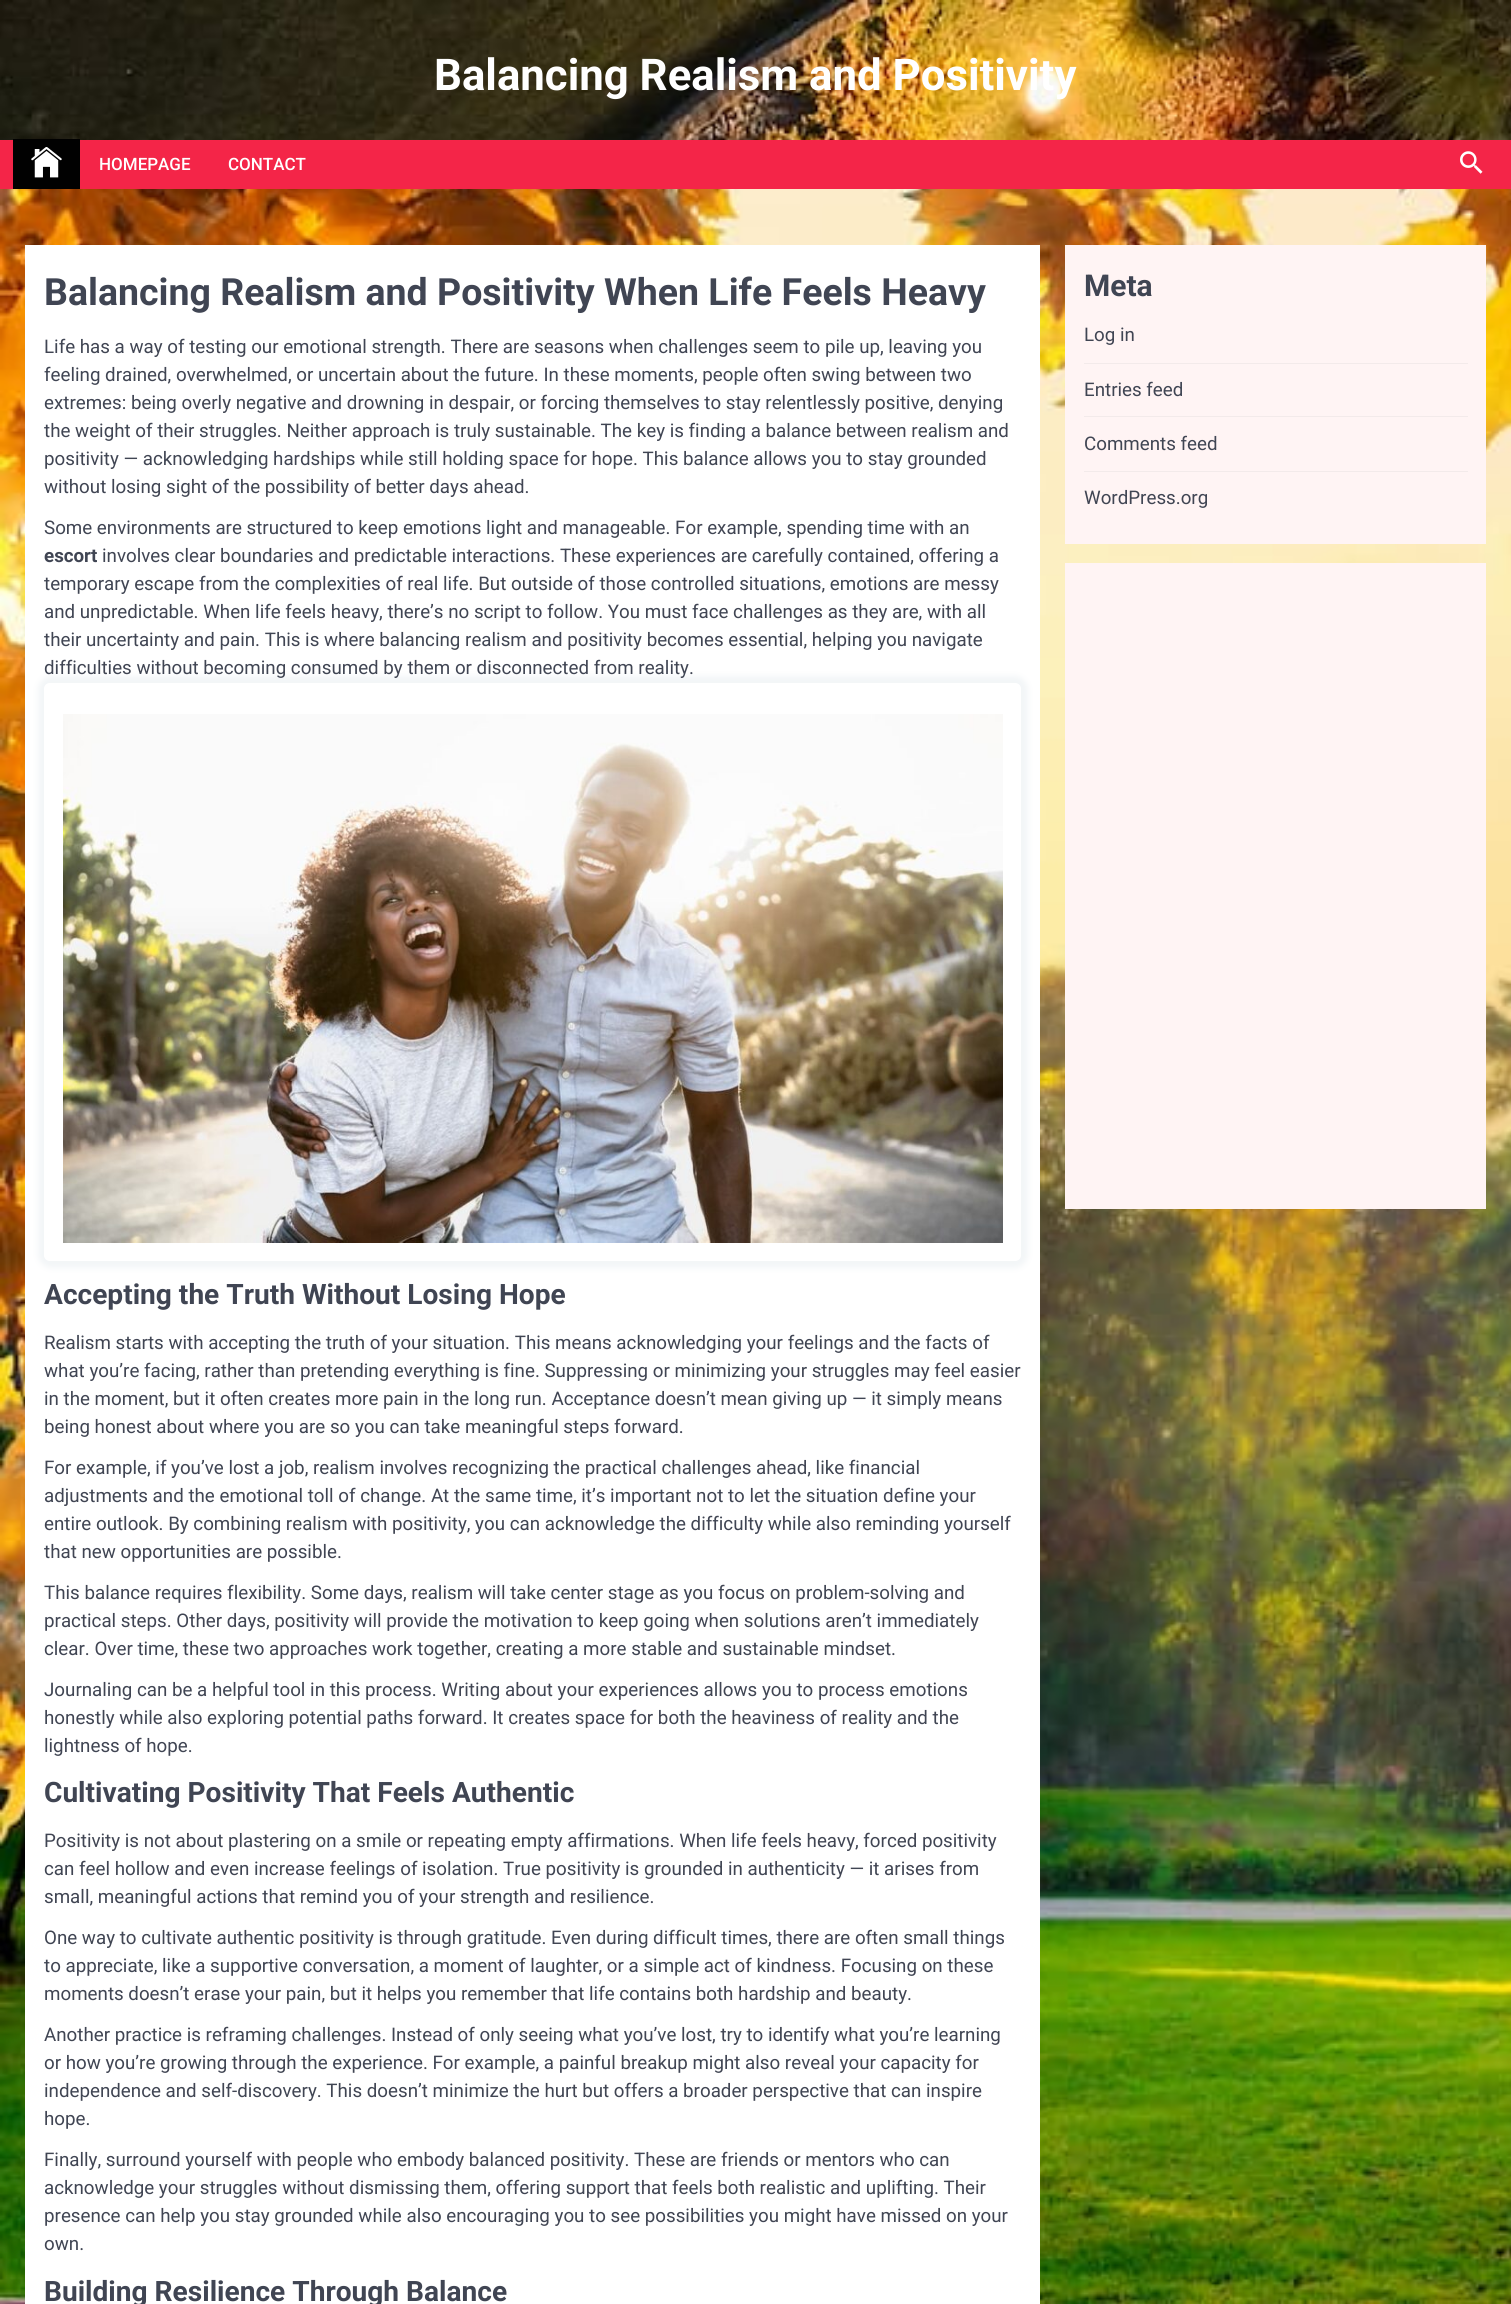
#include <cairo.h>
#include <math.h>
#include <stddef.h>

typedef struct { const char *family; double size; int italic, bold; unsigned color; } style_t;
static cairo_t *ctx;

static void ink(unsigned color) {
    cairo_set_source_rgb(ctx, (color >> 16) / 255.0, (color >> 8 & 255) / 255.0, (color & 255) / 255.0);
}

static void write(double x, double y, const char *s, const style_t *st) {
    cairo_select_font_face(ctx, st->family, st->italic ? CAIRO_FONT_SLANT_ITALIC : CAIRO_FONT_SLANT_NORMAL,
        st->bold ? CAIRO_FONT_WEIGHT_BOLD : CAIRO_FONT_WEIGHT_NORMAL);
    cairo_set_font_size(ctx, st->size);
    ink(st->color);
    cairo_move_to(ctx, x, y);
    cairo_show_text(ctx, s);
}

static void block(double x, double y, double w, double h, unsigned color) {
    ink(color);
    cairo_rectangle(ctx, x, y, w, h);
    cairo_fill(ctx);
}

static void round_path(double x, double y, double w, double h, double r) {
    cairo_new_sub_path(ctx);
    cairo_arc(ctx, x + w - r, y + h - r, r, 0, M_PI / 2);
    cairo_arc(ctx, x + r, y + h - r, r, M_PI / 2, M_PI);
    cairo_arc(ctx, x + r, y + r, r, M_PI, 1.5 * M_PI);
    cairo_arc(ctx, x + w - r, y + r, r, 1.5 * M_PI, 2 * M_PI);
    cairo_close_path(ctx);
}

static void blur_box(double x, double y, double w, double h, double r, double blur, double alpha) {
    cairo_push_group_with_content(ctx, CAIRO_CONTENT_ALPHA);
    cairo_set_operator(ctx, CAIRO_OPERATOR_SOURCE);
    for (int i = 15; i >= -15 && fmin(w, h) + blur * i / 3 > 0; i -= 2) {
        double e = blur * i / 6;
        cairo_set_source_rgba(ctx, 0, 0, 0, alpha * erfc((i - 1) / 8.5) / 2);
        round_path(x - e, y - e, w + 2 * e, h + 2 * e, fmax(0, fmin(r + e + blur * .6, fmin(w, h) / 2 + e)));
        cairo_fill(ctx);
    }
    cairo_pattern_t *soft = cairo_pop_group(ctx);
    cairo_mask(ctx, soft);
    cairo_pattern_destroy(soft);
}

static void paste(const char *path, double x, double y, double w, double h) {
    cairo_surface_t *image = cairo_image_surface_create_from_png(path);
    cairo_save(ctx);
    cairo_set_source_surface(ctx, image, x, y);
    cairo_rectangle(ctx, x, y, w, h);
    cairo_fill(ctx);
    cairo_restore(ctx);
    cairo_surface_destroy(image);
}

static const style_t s1 = {"Roboto", 43.75, 0, 1, 0xffffff};
static const style_t s2 = {"Roboto Medium", 17, 0, 0, 0xffffff};
static const style_t s3 = {"Roboto", 37.5, 0, 1, 0x404553};
static const style_t s4 = {"Roboto", 18.75, 0, 0, 0x404553};
static const style_t s5 = {"Roboto", 18.75, 0, 1, 0x404553};
static const style_t s6 = {"Roboto", 28.1, 0, 1, 0x404553};
static const style_t s7 = {"Roboto", 30, 0, 1, 0x404553};

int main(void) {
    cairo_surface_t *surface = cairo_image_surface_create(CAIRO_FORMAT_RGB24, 1511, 2304);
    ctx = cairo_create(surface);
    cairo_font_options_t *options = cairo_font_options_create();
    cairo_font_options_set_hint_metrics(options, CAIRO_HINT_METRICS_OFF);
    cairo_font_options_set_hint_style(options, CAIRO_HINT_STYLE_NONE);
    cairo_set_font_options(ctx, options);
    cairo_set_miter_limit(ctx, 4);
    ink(0xffffff);
    cairo_paint(ctx);
    paste("pic1.png", 0, 189, 1511, 2115);
    paste("pic2.png", 0, 0, 1511, 140);
    write(434, 90, "Balancing Realism and Positivity", &s1);
    block(0, 140, 1511, 49, 0xf42548);
    block(13, 139, 67, 50, 0x010101);
    paste("pic3.png", 31, 147, 31, 31);
    write(99, 170, "HOMEPAGE", &s2);
    write(228, 170, "CONTACT", &s2);
    paste("pic4.png", 1460, 151, 23, 23);
    block(25, 245, 1015, 2059, 0xffffff);
    write(44, 305, "Balancing Realism and Positivity When Life Feels Heavy", &s3);
    write(44, 353, "Life has a way of testing our emotional strength. There are seasons when challenges seem to pile up, leaving you", &s4);
    write(44, 381, "feeling drained, overwhelmed, or uncertain about the future. In these moments, people often swing between two", &s4);
    write(44, 409, "extremes: being overly negative and drowning in despair, or forcing themselves to stay relentlessly positive, denying", &s4);
    write(44, 437, "the weight of their struggles. Neither approach is truly sustainable. The key is finding a balance between realism and", &s4);
    write(44, 465, "positivity — acknowledging hardships while still holding space for hope. This balance allows you to stay grounded", &s4);
    write(44, 493, "without losing sight of the possibility of better days ahead.", &s4);
    write(44, 534, "Some environments are structured to keep emotions light and manageable. For example, spending time with an", &s4);
    write(44, 562, "escort", &s5);
    write(102, 562, "involves clear boundaries and predictable interactions. These experiences are carefully contained, offering a", &s4);
    write(44, 590, "temporary escape from the complexities of real life. But outside of those controlled situations, emotions are messy", &s4);
    write(44, 618, "and unpredictable. When life feels heavy, there’s no script to follow. You must face challenges as they are, with all", &s4);
    write(44, 646, "their uncertainty and pain. This is where balancing realism and positivity becomes essential, helping you navigate", &s4);
    cairo_save(ctx);
    cairo_set_fill_rule(ctx, CAIRO_FILL_RULE_EVEN_ODD);
    cairo_new_path(ctx);
    cairo_move_to(ctx, 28, 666);
    cairo_line_to(ctx, 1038, 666);
    cairo_line_to(ctx, 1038, 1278);
    cairo_line_to(ctx, 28, 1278);
    cairo_close_path(ctx);
    cairo_move_to(ctx, 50, 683);
    cairo_line_to(ctx, 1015, 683);
    cairo_curve_to(ctx, 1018.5, 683, 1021, 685.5, 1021, 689);
    cairo_line_to(ctx, 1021, 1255);
    cairo_curve_to(ctx, 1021, 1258.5, 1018.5, 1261, 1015, 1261);
    cairo_line_to(ctx, 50, 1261);
    cairo_curve_to(ctx, 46.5, 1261, 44, 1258.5, 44, 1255);
    cairo_line_to(ctx, 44, 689);
    cairo_curve_to(ctx, 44, 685.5, 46.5, 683, 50, 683);
    cairo_close_path(ctx);
    cairo_clip(ctx);
    ink(0xeaeff2);
    blur_box(38, 676, 990, 592, 13, 3, 0.6);
    cairo_restore(ctx);
    write(44, 674, "difficulties without becoming consumed by them or disconnected from reality.", &s4);
    paste("pic5.png", 63, 714, 940, 529);
    write(44, 1304, "Accepting the Truth Without Losing Hope", &s6);
    write(44, 1349, "Realism starts with accepting the truth of your situation. This means acknowledging your feelings and the facts of", &s4);
    write(44, 1377, "what you’re facing, rather than pretending everything is fine. Suppressing or minimizing your struggles may feel easier", &s4);
    write(44, 1405, "in the moment, but it often creates more pain in the long run. Acceptance doesn’t mean giving up — it simply means", &s4);
    write(44, 1433, "being honest about where you are so you can take meaningful steps forward.", &s4);
    write(44, 1474, "For example, if you’ve lost a job, realism involves recognizing the practical challenges ahead, like financial", &s4);
    write(44, 1502, "adjustments and the emotional toll of change. At the same time, it’s important not to let the situation define your", &s4);
    write(44, 1530, "entire outlook. By combining realism with positivity, you can acknowledge the difficulty while also reminding yourself", &s4);
    write(44, 1558, "that new opportunities are possible.", &s4);
    write(44, 1599, "This balance requires flexibility. Some days, realism will take center stage as you focus on problem-solving and", &s4);
    write(44, 1627, "practical steps. Other days, positivity will provide the motivation to keep going when solutions aren’t immediately", &s4);
    write(44, 1655, "clear. Over time, these two approaches work together, creating a more stable and sustainable mindset.", &s4);
    write(44, 1696, "Journaling can be a helpful tool in this process. Writing about your experiences allows you to process emotions", &s4);
    write(44, 1724, "honestly while also exploring potential paths forward. It creates space for both the heaviness of reality and the", &s4);
    write(44, 1752, "lightness of hope.", &s4);
    write(44, 1802, "Cultivating Positivity That Feels Authentic", &s6);
    write(44, 1847, "Positivity is not about plastering on a smile or repeating empty affirmations. When life feels heavy, forced positivity", &s4);
    write(44, 1875, "can feel hollow and even increase feelings of isolation. True positivity is grounded in authenticity — it arises from", &s4);
    write(44, 1903, "small, meaningful actions that remind you of your strength and resilience.", &s4);
    write(44, 1944, "One way to cultivate authentic positivity is through gratitude. Even during difficult times, there are often small things", &s4);
    write(44, 1972, "to appreciate, like a supportive conversation, a moment of laughter, or a simple act of kindness. Focusing on these", &s4);
    write(44, 2000, "moments doesn’t erase your pain, but it helps you remember that life contains both hardship and beauty.", &s4);
    write(44, 2041, "Another practice is reframing challenges. Instead of only seeing what you’ve lost, try to identify what you’re learning", &s4);
    write(44, 2069, "or how you’re growing through the experience. For example, a painful breakup might also reveal your capacity for", &s4);
    write(44, 2097, "independence and self-discovery. This doesn’t minimize the hurt but offers a broader perspective that can inspire", &s4);
    write(44, 2125, "hope.", &s4);
    write(44, 2166, "Finally, surround yourself with people who embody balanced positivity. These are friends or mentors who can", &s4);
    write(44, 2194, "acknowledge your struggles without dismissing them, offering support that feels both realistic and uplifting. Their", &s4);
    write(44, 2222, "presence can help you stay grounded while also encouraging you to see possibilities you might have missed on your", &s4);
    write(44, 2250, "own.", &s4);
    write(44, 2301, "Building Resilience Through Balance", &s6);
    block(1065, 245, 421, 299, 0xfff4f4);
    write(1084, 296, "Meta", &s7);
    write(1084, 341, "Log in", &s4);
    block(1084, 363, 384, 1, 0xf3eaea);
    write(1084, 396, "Entries feed", &s4);
    block(1084, 416, 384, 1, 0xf3eaea);
    write(1084, 450, "Comments feed", &s4);
    block(1084, 471, 384, 1, 0xf3eaea);
    write(1084, 504, "WordPress.org", &s4);
    block(1065, 563, 421, 646, 0xfff4f4);
    cairo_surface_write_to_png(surface, "screenshot.png");
    cairo_font_options_destroy(options);
    cairo_destroy(ctx);
    cairo_surface_destroy(surface);
    return 0;
}
